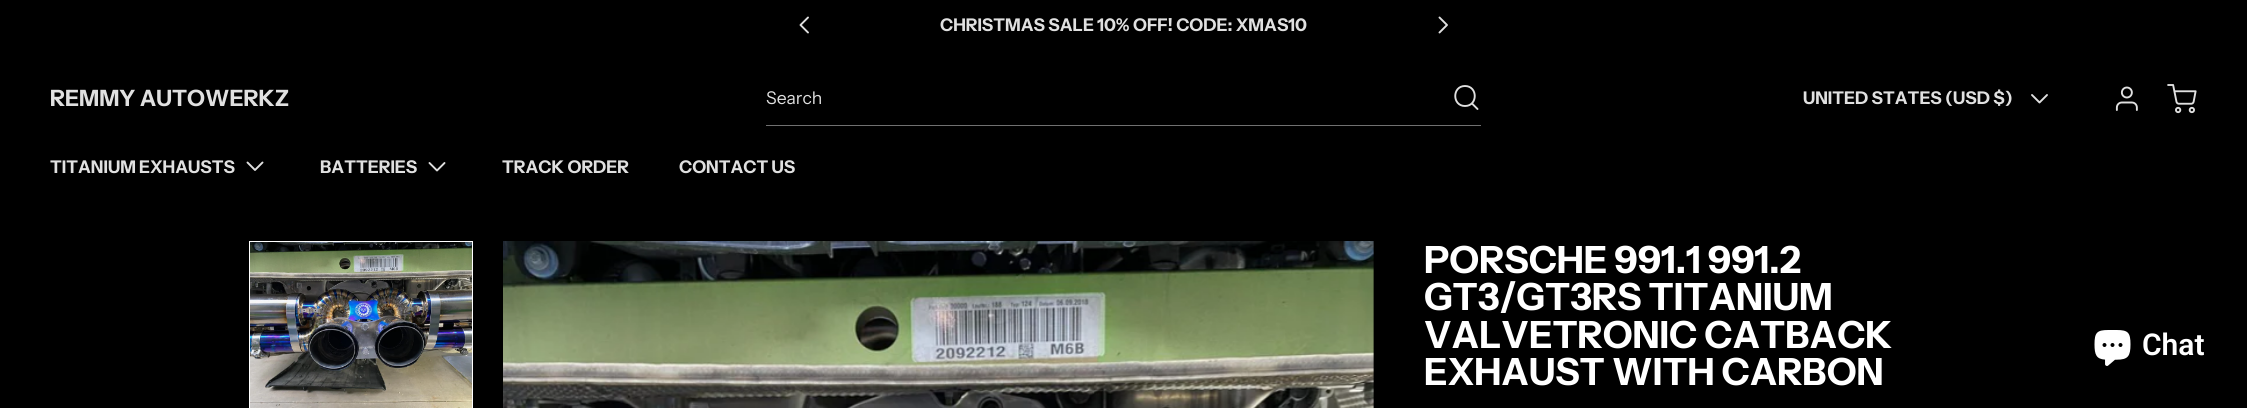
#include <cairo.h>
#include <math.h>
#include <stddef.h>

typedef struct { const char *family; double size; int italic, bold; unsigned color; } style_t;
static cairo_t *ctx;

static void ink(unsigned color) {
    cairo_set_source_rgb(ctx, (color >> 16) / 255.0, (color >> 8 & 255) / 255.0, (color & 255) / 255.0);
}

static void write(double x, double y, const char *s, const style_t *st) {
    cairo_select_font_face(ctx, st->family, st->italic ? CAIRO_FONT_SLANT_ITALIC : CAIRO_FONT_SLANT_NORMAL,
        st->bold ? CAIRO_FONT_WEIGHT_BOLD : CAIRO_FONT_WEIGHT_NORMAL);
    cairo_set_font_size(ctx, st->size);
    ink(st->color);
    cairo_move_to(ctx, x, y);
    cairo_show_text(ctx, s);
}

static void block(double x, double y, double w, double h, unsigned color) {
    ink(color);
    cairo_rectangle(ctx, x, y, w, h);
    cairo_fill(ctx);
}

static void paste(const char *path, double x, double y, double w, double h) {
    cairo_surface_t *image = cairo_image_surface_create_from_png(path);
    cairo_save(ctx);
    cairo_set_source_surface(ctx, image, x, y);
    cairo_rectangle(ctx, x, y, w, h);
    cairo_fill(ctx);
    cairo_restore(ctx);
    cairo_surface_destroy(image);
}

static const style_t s1 = {"Instrument Sans", 17.5, 0, 1, 0xe0e0e0};
static const style_t s2 = {"Instrument Sans", 22.5, 0, 1, 0xe0e0e0};
static const style_t s3 = {"Instrument Sans", 17.5, 0, 0, 0xe0e0e0};
static const style_t s4 = {"Instrument Sans", 37.5, 0, 1, 0xffffff};
static const style_t s5 = {"Roboto SemiBold", 30, 0, 0, 0xffffff};

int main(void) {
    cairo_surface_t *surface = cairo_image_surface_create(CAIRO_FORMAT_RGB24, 2247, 408);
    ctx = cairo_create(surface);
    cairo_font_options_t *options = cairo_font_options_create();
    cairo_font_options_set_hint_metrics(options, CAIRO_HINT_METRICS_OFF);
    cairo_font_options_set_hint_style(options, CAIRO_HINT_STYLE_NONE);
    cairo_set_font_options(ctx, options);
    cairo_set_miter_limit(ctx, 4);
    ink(0x000000);
    cairo_paint(ctx);
    cairo_new_path(ctx);
    cairo_move_to(ctx, 808, 32.5);
    cairo_line_to(ctx, 800.5, 25);
    cairo_line_to(ctx, 808, 17.5);
    ink(0xe0e0e0);
    cairo_set_line_width(ctx, 1.9);
    cairo_set_line_cap(ctx, CAIRO_LINE_CAP_ROUND);
    cairo_set_line_join(ctx, CAIRO_LINE_JOIN_ROUND);
    cairo_stroke(ctx);
    write(940, 31, "CHRISTMAS SALE 10% OFF! CODE: XMAS10", &s1);
    cairo_new_path(ctx);
    cairo_move_to(ctx, 1439.5, 17.5);
    cairo_line_to(ctx, 1447, 25);
    cairo_line_to(ctx, 1439.5, 32.5);
    cairo_stroke(ctx);
    write(50, 106, "REMMY AUTOWERKZ", &s2);
    write(766, 104, "Search", &s3);
    cairo_new_path(ctx);
    cairo_move_to(ctx, 1465, 106);
    cairo_curve_to(ctx, 1478, 106, 1478, 86, 1465, 86);
    cairo_curve_to(ctx, 1452, 86, 1452, 106, 1465, 106);
    cairo_close_path(ctx);
    cairo_move_to(ctx, 1477.5, 109);
    cairo_line_to(ctx, 1472, 103.5);
    cairo_stroke(ctx);
    block(766, 125, 715, 1, 0x707070);
    write(1803, 104, "UNITED STATES (USD $)", &s1);
    cairo_new_path(ctx);
    cairo_move_to(ctx, 2047, 95);
    cairo_line_to(ctx, 2039.5, 102.5);
    cairo_line_to(ctx, 2032, 95);
    cairo_stroke(ctx);
    paste("pic1.png", 2115, 86, 23, 25);
    paste("pic2.png", 2167, 84, 30, 30);
    write(50, 173, "TITANIUM EXHAUSTS", &s1);
    cairo_new_path(ctx);
    cairo_move_to(ctx, 247.5, 162.5);
    cairo_line_to(ctx, 255, 170);
    cairo_line_to(ctx, 262.5, 162.5);
    cairo_stroke(ctx);
    write(320, 173, "BATTERIES", &s1);
    cairo_new_path(ctx);
    cairo_move_to(ctx, 429.5, 163);
    cairo_line_to(ctx, 437, 170.5);
    cairo_line_to(ctx, 444.5, 163);
    cairo_stroke(ctx);
    write(502, 173, "TRACK ORDER", &s1);
    write(679, 173, "CONTACT US", &s1);
    paste("pic3.png", 250, 242, 222, 166);
    cairo_rectangle(ctx, 249.5, 241.5, 223, 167);
    ink(0xffffff);
    cairo_set_line_width(ctx, 1);
    cairo_set_line_cap(ctx, CAIRO_LINE_CAP_BUTT);
    cairo_set_line_join(ctx, CAIRO_LINE_JOIN_MITER);
    cairo_stroke(ctx);
    paste("pic4.png", 503, 241, 871, 167);
    write(1424, 273, "PORSCHE 991.1 991.2", &s4);
    write(1424, 310, "GT3/GT3RS TITANIUM", &s4);
    write(1424, 348, "VALVETRONIC CATBACK", &s4);
    write(1424, 385, "EXHAUST WITH CARBON", &s4);
    paste("pic5.png", 2094, 330, 37, 36);
    write(2142, 355, "Chat", &s5);
    cairo_surface_write_to_png(surface, "screenshot.png");
    cairo_font_options_destroy(options);
    cairo_destroy(ctx);
    cairo_surface_destroy(surface);
    return 0;
}
